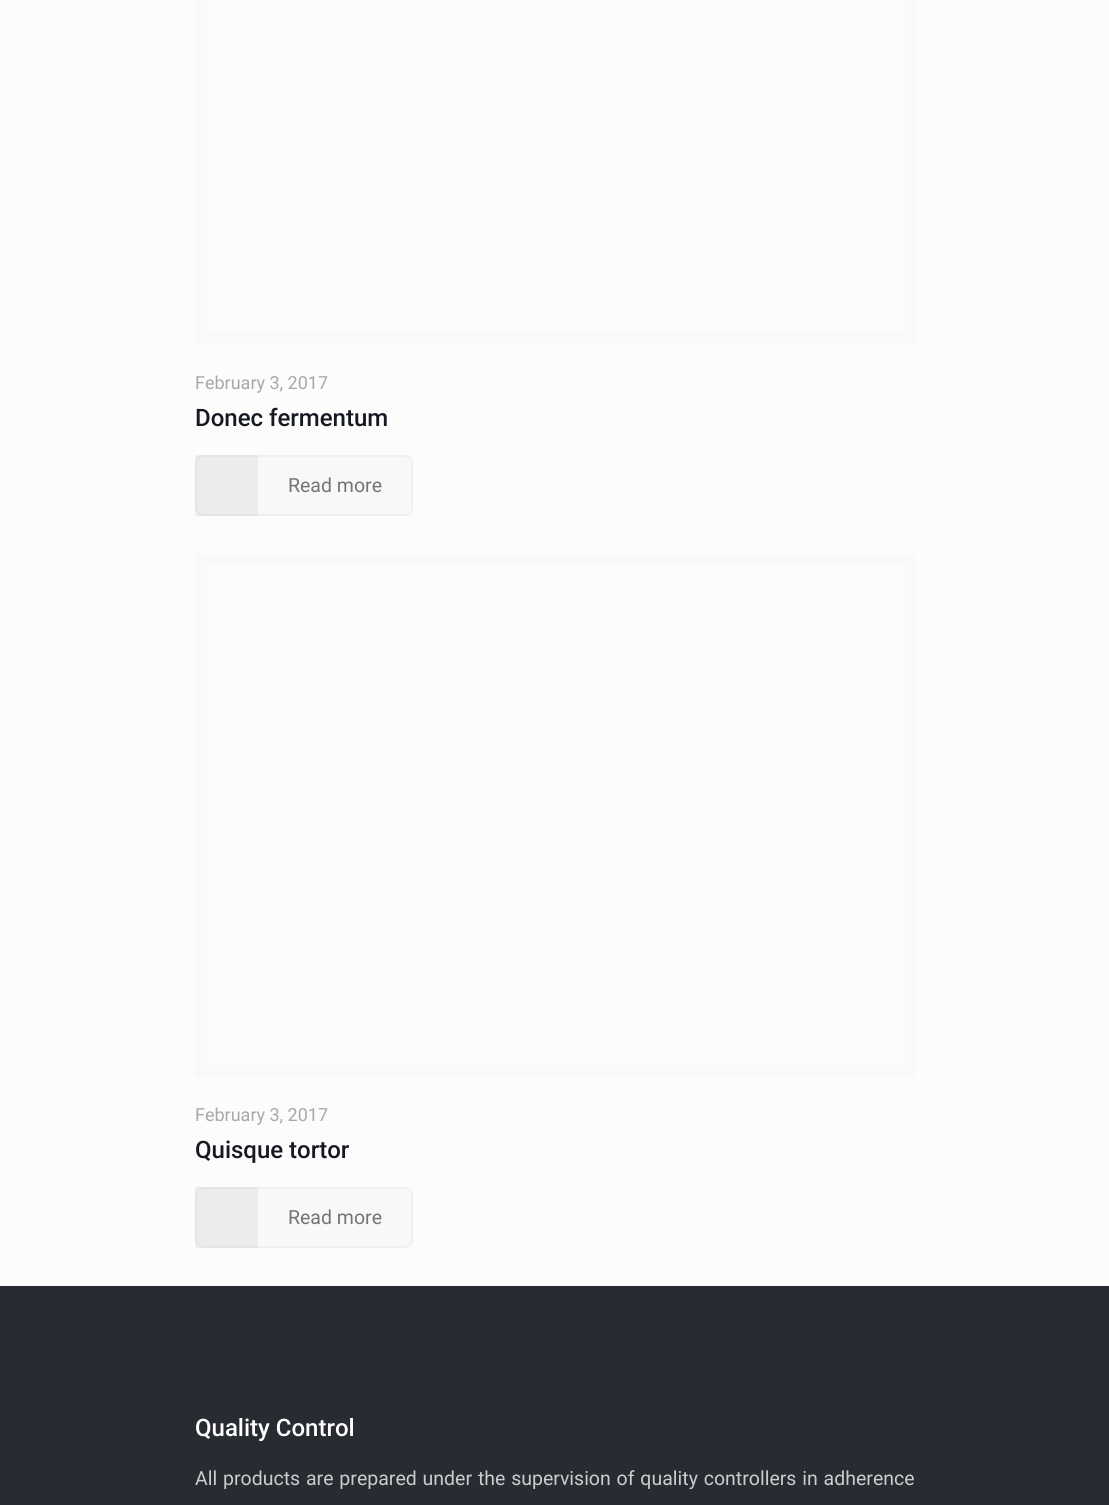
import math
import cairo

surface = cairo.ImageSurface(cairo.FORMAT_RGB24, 1109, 1505)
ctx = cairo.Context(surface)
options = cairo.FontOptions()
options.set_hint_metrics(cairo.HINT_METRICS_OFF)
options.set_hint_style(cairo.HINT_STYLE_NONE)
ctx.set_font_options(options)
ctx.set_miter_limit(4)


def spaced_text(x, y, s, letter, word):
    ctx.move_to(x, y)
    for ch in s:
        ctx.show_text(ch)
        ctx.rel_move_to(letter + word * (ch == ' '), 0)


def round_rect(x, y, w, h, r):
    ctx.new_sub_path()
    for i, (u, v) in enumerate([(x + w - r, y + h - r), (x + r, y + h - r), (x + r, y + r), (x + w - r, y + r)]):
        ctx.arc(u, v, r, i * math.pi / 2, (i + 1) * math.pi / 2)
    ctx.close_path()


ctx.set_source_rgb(0.988, 0.988, 0.988)
ctx.paint()
ctx.rectangle(201, -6, 708, 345)
ctx.set_source_rgb(0.973, 0.973, 0.973)
ctx.set_line_width(12)
ctx.stroke()
ctx.select_font_face("Roboto")
ctx.set_font_size(18)
ctx.set_source_rgb(0.659, 0.659, 0.659)
ctx.move_to(195, 389)
ctx.show_text("February 3, 2017")
ctx.select_font_face("Roboto Medium")
ctx.set_font_size(24)
ctx.set_source_rgb(0.086, 0.098, 0.133)
ctx.move_to(195, 426)
ctx.show_text("Donec fermentum")
ctx.set_source_rgb(0.969, 0.969, 0.969)
round_rect(196, 456, 216, 59, 7)
ctx.fill_preserve()
ctx.set_source_rgb(0.941, 0.941, 0.941)
ctx.set_line_width(2)
ctx.stroke()
ctx.set_source_rgba(0, 0, 0, 0.05)
ctx.rectangle(195, 455, 63, 61)
ctx.fill()
ctx.select_font_face("Roboto")
ctx.set_font_size(19.5)
ctx.set_source_rgb(0.455, 0.455, 0.455)
ctx.move_to(288, 492)
ctx.show_text("Read more")
ctx.rectangle(201, 560, 708, 511)
ctx.set_source_rgb(0.973, 0.973, 0.973)
ctx.set_line_width(12)
ctx.stroke()
ctx.set_font_size(18)
ctx.set_source_rgb(0.659, 0.659, 0.659)
ctx.move_to(195, 1121)
ctx.show_text("February 3, 2017")
ctx.select_font_face("Roboto Medium")
ctx.set_font_size(24)
ctx.set_source_rgb(0.086, 0.098, 0.133)
ctx.move_to(195, 1158)
ctx.show_text("Quisque tortor")
ctx.set_source_rgb(0.969, 0.969, 0.969)
round_rect(196, 1188, 216, 59, 7)
ctx.fill_preserve()
ctx.set_source_rgb(0.941, 0.941, 0.941)
ctx.set_line_width(2)
ctx.stroke()
ctx.set_source_rgba(0, 0, 0, 0.05)
ctx.rectangle(195, 1187, 63, 61)
ctx.fill()
ctx.select_font_face("Roboto")
ctx.set_font_size(19.5)
ctx.set_source_rgb(0.455, 0.455, 0.455)
ctx.move_to(288, 1224)
ctx.show_text("Read more")
ctx.set_source_rgb(0.161, 0.169, 0.2)
ctx.rectangle(0, 1286, 1109, 219)
ctx.fill()
ctx.select_font_face("Roboto Medium")
ctx.set_font_size(24)
ctx.set_source_rgb(1, 1, 1)
ctx.move_to(195, 1436)
ctx.show_text("Quality Control")
ctx.select_font_face("Roboto")
ctx.set_font_size(19.5)
ctx.set_source_rgb(0.8, 0.8, 0.8)
spaced_text(195, 1485, "All products are prepared under the supervision of quality controllers in adherence", 0, 1)
surface.write_to_png("page.png")
